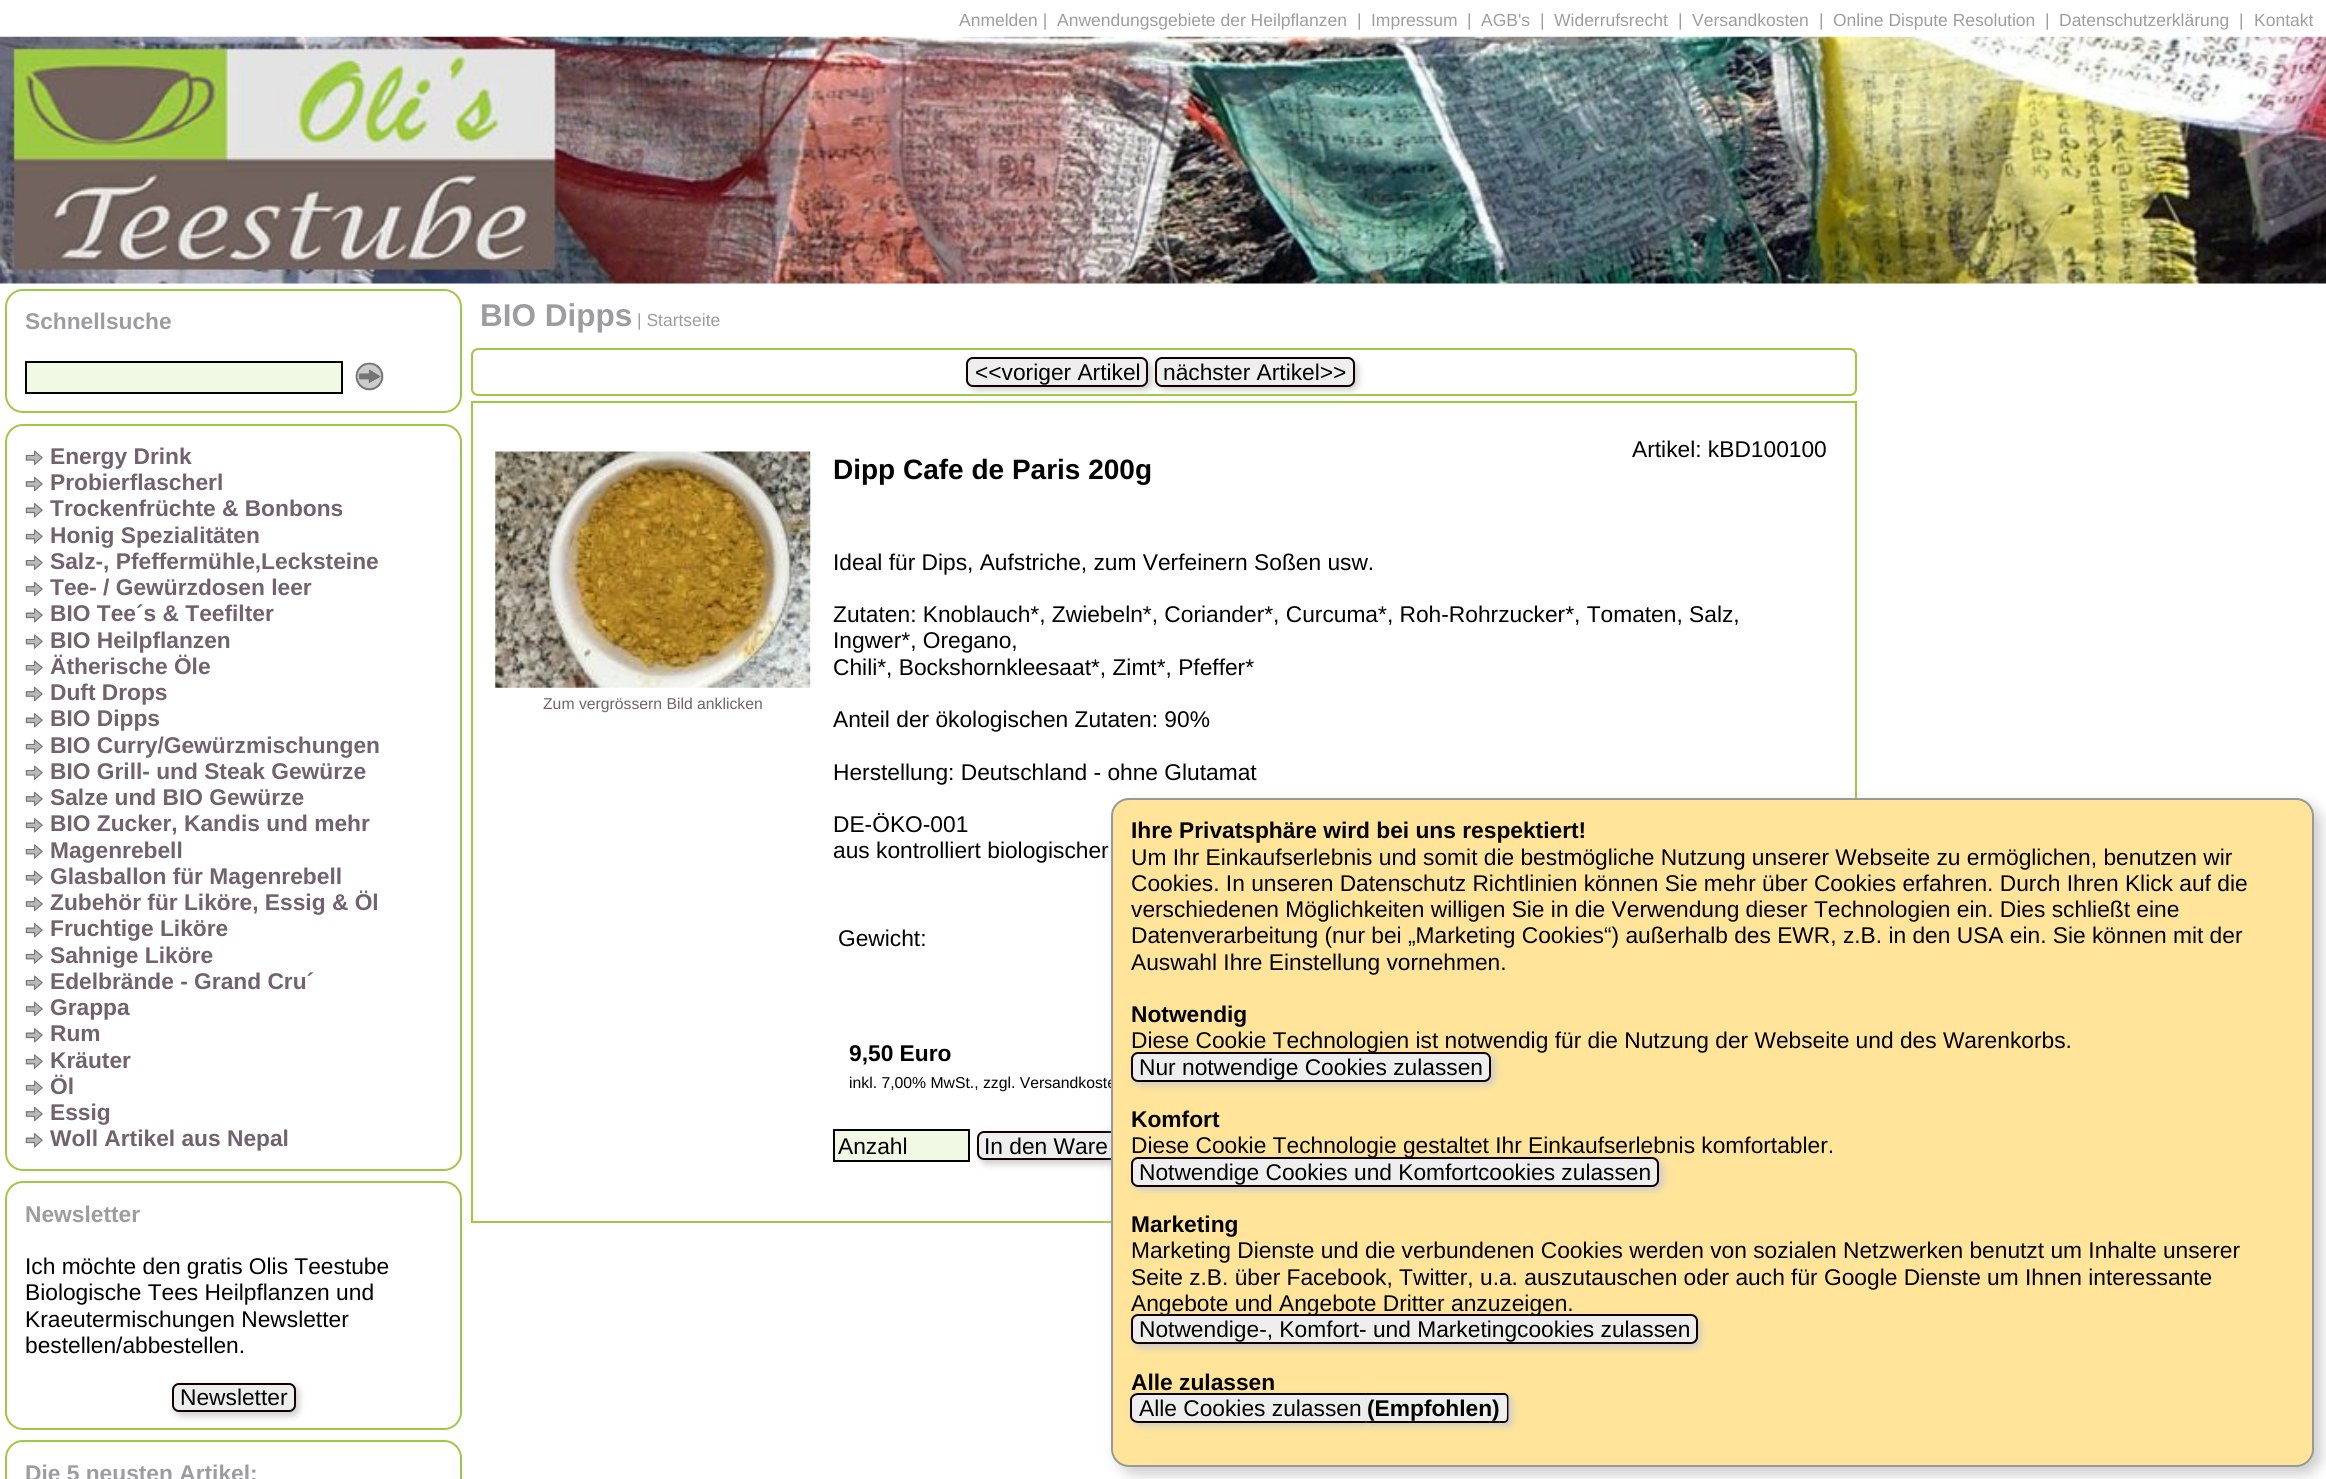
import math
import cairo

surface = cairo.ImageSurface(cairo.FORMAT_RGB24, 2326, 1479)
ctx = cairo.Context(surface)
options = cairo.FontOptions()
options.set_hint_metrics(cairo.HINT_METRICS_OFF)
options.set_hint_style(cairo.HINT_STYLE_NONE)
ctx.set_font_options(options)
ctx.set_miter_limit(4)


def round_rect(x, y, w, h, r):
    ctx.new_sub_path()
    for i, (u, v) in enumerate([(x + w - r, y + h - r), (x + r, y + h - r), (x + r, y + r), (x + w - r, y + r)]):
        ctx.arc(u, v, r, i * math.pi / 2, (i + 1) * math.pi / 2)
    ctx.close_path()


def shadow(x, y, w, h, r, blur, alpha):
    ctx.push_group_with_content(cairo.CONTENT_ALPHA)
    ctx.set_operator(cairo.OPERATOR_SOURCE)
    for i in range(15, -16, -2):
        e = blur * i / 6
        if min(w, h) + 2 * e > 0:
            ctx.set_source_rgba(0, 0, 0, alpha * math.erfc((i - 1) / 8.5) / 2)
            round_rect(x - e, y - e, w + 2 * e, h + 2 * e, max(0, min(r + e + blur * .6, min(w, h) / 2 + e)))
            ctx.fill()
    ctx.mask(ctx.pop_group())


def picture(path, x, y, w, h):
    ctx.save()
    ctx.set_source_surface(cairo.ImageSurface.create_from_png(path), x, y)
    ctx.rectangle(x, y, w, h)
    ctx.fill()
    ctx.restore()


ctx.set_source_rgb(1, 1, 1)
ctx.paint()
ctx.select_font_face("Liberation Sans")
ctx.set_font_size(17.5)
ctx.set_source_rgb(0.616, 0.616, 0.624)
ctx.move_to(959, 26)
ctx.show_text("Anmelden |")
ctx.move_to(1057, 26)
ctx.show_text("Anwendungsgebiete der Heilpflanzen")
ctx.move_to(1357, 26)
ctx.show_text("|")
ctx.move_to(1371, 26)
ctx.show_text("Impressum")
ctx.move_to(1467, 26)
ctx.show_text("|")
ctx.move_to(1481, 26)
ctx.show_text("AGB's")
ctx.move_to(1540, 26)
ctx.show_text("|")
ctx.move_to(1554, 26)
ctx.show_text("Widerrufsrecht")
ctx.move_to(1678, 26)
ctx.show_text("|")
ctx.move_to(1692, 26)
ctx.show_text("Versandkosten")
ctx.move_to(1819, 26)
ctx.show_text("|")
ctx.move_to(1833, 26)
ctx.show_text("Online Dispute Resolution")
ctx.move_to(2045, 26)
ctx.show_text("|")
ctx.move_to(2059, 26)
ctx.show_text("Datenschutzerklärung")
ctx.move_to(2239, 26)
ctx.show_text("|")
ctx.move_to(2254, 26)
ctx.show_text("Kontakt")
picture("img1.png", 0, 36, 2326, 248)
round_rect(6, 290, 455, 122, 17)
ctx.set_source_rgb(0.62, 0.788, 0.263)
ctx.stroke()
ctx.select_font_face("Liberation Sans", cairo.FONT_SLANT_NORMAL, cairo.FONT_WEIGHT_BOLD)
ctx.set_font_size(22.75)
ctx.set_source_rgb(0.616, 0.616, 0.624)
ctx.move_to(25, 329)
ctx.show_text("Schnellsuche")
ctx.set_source_rgb(0.945, 0.969, 0.894)
ctx.rectangle(26, 362, 316, 31)
ctx.fill_preserve()
ctx.set_source_rgb(0, 0, 0)
ctx.stroke()
picture("img2.png", 355, 362, 29, 29)
round_rect(6, 425, 455, 745, 17)
ctx.set_source_rgb(0.62, 0.788, 0.263)
ctx.stroke()
picture("img3.png", 25, 450, 18, 16)
ctx.set_source_rgb(0.443, 0.384, 0.427)
ctx.move_to(50, 464)
ctx.show_text("Energy Drink")
picture("img4.png", 25, 476, 18, 16)
ctx.move_to(50, 490)
ctx.show_text("Probierflascherl")
picture("img5.png", 25, 503, 18, 15)
ctx.move_to(50, 516)
ctx.show_text("Trockenfrüchte & Bonbons")
picture("img6.png", 25, 529, 18, 15)
ctx.move_to(50, 543)
ctx.show_text("Honig Spezialitäten")
picture("img3.png", 25, 555, 18, 16)
ctx.move_to(50, 569)
ctx.show_text("Salz-, Pfeffermühle,Lecksteine")
picture("img4.png", 25, 581, 18, 16)
ctx.move_to(50, 595)
ctx.show_text("Tee- / Gewürzdosen leer")
picture("img5.png", 25, 608, 18, 15)
ctx.move_to(50, 621)
ctx.show_text("BIO Tee´s & Teefilter")
picture("img7.png", 25, 634, 18, 15)
ctx.move_to(50, 648)
ctx.show_text("BIO Heilpflanzen")
picture("img3.png", 25, 660, 18, 16)
ctx.move_to(50, 674)
ctx.show_text("Ätherische Öle")
picture("img4.png", 25, 686, 18, 16)
ctx.move_to(50, 700)
ctx.show_text("Duft Drops")
picture("img5.png", 25, 713, 18, 15)
ctx.move_to(50, 726)
ctx.show_text("BIO Dipps")
picture("img7.png", 25, 739, 18, 15)
ctx.move_to(50, 753)
ctx.show_text("BIO Curry/Gewürzmischungen")
picture("img3.png", 25, 765, 18, 16)
ctx.move_to(50, 779)
ctx.show_text("BIO Grill- und Steak Gewürze")
picture("img8.png", 25, 791, 18, 16)
ctx.move_to(50, 805)
ctx.show_text("Salze und BIO Gewürze")
picture("img5.png", 25, 818, 18, 15)
ctx.move_to(50, 831)
ctx.show_text("BIO Zucker, Kandis und mehr")
picture("img7.png", 25, 844, 18, 15)
ctx.move_to(50, 858)
ctx.show_text("Magenrebell")
picture("img3.png", 25, 870, 18, 16)
ctx.move_to(50, 884)
ctx.show_text("Glasballon für Magenrebell")
picture("img8.png", 25, 896, 18, 16)
ctx.move_to(50, 910)
ctx.show_text("Zubehör für Liköre, Essig & Öl")
picture("img5.png", 25, 923, 18, 15)
ctx.move_to(50, 936)
ctx.show_text("Fruchtige Liköre")
picture("img7.png", 25, 949, 18, 15)
ctx.move_to(50, 963)
ctx.show_text("Sahnige Liköre")
picture("img3.png", 25, 975, 18, 16)
ctx.move_to(50, 989)
ctx.show_text("Edelbrände - Grand Cru´")
picture("img4.png", 25, 1001, 18, 16)
ctx.move_to(50, 1015)
ctx.show_text("Grappa")
picture("img5.png", 25, 1028, 18, 15)
ctx.move_to(50, 1041)
ctx.show_text("Rum")
picture("img9.png", 25, 1054, 18, 15)
ctx.move_to(50, 1068)
ctx.show_text("Kräuter")
picture("img3.png", 25, 1080, 18, 16)
ctx.move_to(50, 1094)
ctx.show_text("Öl")
picture("img4.png", 25, 1106, 18, 16)
ctx.move_to(50, 1120)
ctx.show_text("Essig")
picture("img5.png", 25, 1133, 18, 15)
ctx.move_to(50, 1146)
ctx.show_text("Woll Artikel aus Nepal")
round_rect(6, 1182, 455, 247, 17)
ctx.set_source_rgb(0.62, 0.788, 0.263)
ctx.stroke()
ctx.set_source_rgb(0.616, 0.616, 0.624)
ctx.move_to(25, 1222)
ctx.show_text("Newsletter")
ctx.select_font_face("Liberation Sans")
ctx.set_source_rgb(0, 0, 0)
ctx.move_to(25, 1274)
ctx.show_text("Ich möchte den gratis Olis Teestube")
ctx.move_to(25, 1300)
ctx.show_text("Biologische Tees Heilpflanzen und")
ctx.move_to(25, 1327)
ctx.show_text("Kraeutermischungen Newsletter")
ctx.move_to(25, 1353)
ctx.show_text("bestellen/abbestellen.")
ctx.set_source_rgb(0.8, 0.8, 0.8)
shadow(175, 1386, 124, 30, 7, 3.5, 1)
ctx.set_source_rgb(0.933, 0.933, 0.933)
round_rect(173, 1384, 122, 27, 6)
ctx.fill_preserve()
ctx.set_source_rgb(0.067, 0, 0)
ctx.stroke()
ctx.set_source_rgb(0, 0, 0)
ctx.move_to(180, 1405)
ctx.show_text("Newsletter")
round_rect(6, 1441, 455, 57, 17)
ctx.set_source_rgb(0.62, 0.788, 0.263)
ctx.stroke()
ctx.select_font_face("Liberation Sans", cairo.FONT_SLANT_NORMAL, cairo.FONT_WEIGHT_BOLD)
ctx.set_source_rgb(0.616, 0.616, 0.624)
ctx.move_to(25, 1481)
ctx.show_text("Die 5 neusten Artikel:")
ctx.set_font_size(31.5)
ctx.move_to(480, 326)
ctx.show_text("BIO Dipps")
ctx.select_font_face("Liberation Sans")
ctx.set_font_size(17.5)
ctx.move_to(637, 326)
ctx.show_text("| Startseite")
round_rect(472, 349, 1384, 46, 6)
ctx.set_source_rgb(0.62, 0.788, 0.263)
ctx.stroke()
ctx.rectangle(472, 402, 1384, 820)
ctx.stroke()
ctx.set_source_rgb(0.8, 0.8, 0.8)
shadow(970, 361, 182, 29, 7, 3.5, 1)
ctx.set_source_rgb(0.933, 0.933, 0.933)
round_rect(967, 358, 180, 28, 6)
ctx.fill_preserve()
ctx.set_source_rgb(0.067, 0, 0)
ctx.stroke()
ctx.set_font_size(22.75)
ctx.set_source_rgb(0, 0, 0)
ctx.move_to(975, 380)
ctx.show_text("<<voriger Artikel")
ctx.set_source_rgb(0.8, 0.8, 0.8)
shadow(1159, 361, 199, 29, 7, 3.5, 1)
ctx.set_source_rgb(0.933, 0.933, 0.933)
round_rect(1156, 358, 198, 28, 6)
ctx.fill_preserve()
ctx.set_source_rgb(0.067, 0, 0)
ctx.stroke()
ctx.set_source_rgb(0, 0, 0)
ctx.move_to(1163, 380)
ctx.show_text("nächster Artikel>>")
picture("img10.png", 495, 451, 316, 237)
ctx.set_font_size(15.75)
ctx.set_source_rgb(0.443, 0.384, 0.427)
ctx.move_to(543, 709)
ctx.show_text("Zum vergrössern Bild anklicken")
ctx.set_font_size(22.75)
ctx.set_source_rgb(0, 0, 0)
ctx.move_to(1632, 457)
ctx.show_text("Artikel: kBD100100")
ctx.select_font_face("Liberation Sans", cairo.FONT_SLANT_NORMAL, cairo.FONT_WEIGHT_BOLD)
ctx.set_font_size(28)
ctx.move_to(833, 479)
ctx.show_text("Dipp Cafe de Paris 200g")
ctx.select_font_face("Liberation Sans")
ctx.set_font_size(22.75)
ctx.move_to(833, 570)
ctx.show_text("Ideal für Dips, Aufstriche, zum Verfeinern Soßen usw.")
ctx.move_to(833, 622)
ctx.show_text("Zutaten: Knoblauch*, Zwiebeln*, Coriander*, Curcuma*, Roh-Rohrzucker*, Tomaten, Salz,")
ctx.move_to(833, 648)
ctx.show_text("Ingwer*, Oregano,")
ctx.move_to(833, 675)
ctx.show_text("Chili*, Bockshornkleesaat*, Zimt*, Pfeffer*")
ctx.move_to(833, 727)
ctx.show_text("Anteil der ökologischen Zutaten: 90%")
ctx.move_to(833, 780)
ctx.show_text("Herstellung: Deutschland - ohne Glutamat")
ctx.move_to(833, 832)
ctx.show_text("DE-ÖKO-001")
ctx.move_to(833, 858)
ctx.show_text("aus kontrolliert biologischer")
ctx.move_to(838, 946)
ctx.show_text("Gewicht:")
ctx.select_font_face("Liberation Sans", cairo.FONT_SLANT_NORMAL, cairo.FONT_WEIGHT_BOLD)
ctx.move_to(849, 1061)
ctx.show_text("9,50 Euro")
ctx.select_font_face("Liberation Sans")
ctx.set_font_size(15.75)
ctx.move_to(849, 1088)
ctx.show_text("inkl. 7,00% MwSt., zzgl. Versandkoste")
ctx.set_source_rgb(0.945, 0.969, 0.894)
ctx.rectangle(834, 1130, 135, 31)
ctx.fill_preserve()
ctx.set_source_rgb(0, 0, 0)
ctx.stroke()
ctx.set_font_size(22.75)
ctx.move_to(838, 1154)
ctx.show_text("Anzahl")
ctx.set_source_rgb(0.8, 0.8, 0.8)
shadow(980, 1134, 259, 30, 7, 3.5, 1)
ctx.set_source_rgb(0.933, 0.933, 0.933)
round_rect(978, 1132, 257, 27, 6)
ctx.fill_preserve()
ctx.set_source_rgb(0.067, 0, 0)
ctx.stroke()
ctx.set_source_rgb(0, 0, 0)
ctx.move_to(984, 1154)
ctx.show_text("In den Ware")
ctx.set_source_rgb(0.8, 0.8, 0.8)
shadow(1118, 805, 1203, 669, 18, 7, 1)
ctx.set_source_rgb(1, 0.894, 0.6)
round_rect(1112, 799, 1201, 667, 17)
ctx.fill_preserve()
ctx.set_source_rgb(0.6, 0.6, 0.6)
ctx.stroke()
ctx.select_font_face("Liberation Sans", cairo.FONT_SLANT_NORMAL, cairo.FONT_WEIGHT_BOLD)
ctx.set_source_rgb(0, 0, 0)
ctx.move_to(1131, 838)
ctx.show_text("Ihre Privatsphäre wird bei uns respektiert!")
ctx.select_font_face("Liberation Sans")
ctx.move_to(1131, 865)
ctx.show_text("Um Ihr Einkaufserlebnis und somit die bestmögliche Nutzung unserer Webseite zu ermöglichen, benutzen wir")
ctx.move_to(1131, 891)
ctx.show_text("Cookies. In unseren Datenschutz Richtlinien können Sie mehr über Cookies erfahren. Durch Ihren Klick auf die")
ctx.move_to(1131, 917)
ctx.show_text("verschiedenen Möglichkeiten willigen Sie in die Verwendung dieser Technologien ein. Dies schließt eine")
ctx.move_to(1131, 943)
ctx.show_text("Datenverarbeitung (nur bei „Marketing Cookies“) außerhalb des EWR, z.B. in den USA ein. Sie können mit der")
ctx.move_to(1131, 970)
ctx.show_text("Auswahl Ihre Einstellung vornehmen.")
ctx.select_font_face("Liberation Sans", cairo.FONT_SLANT_NORMAL, cairo.FONT_WEIGHT_BOLD)
ctx.move_to(1131, 1022)
ctx.show_text("Notwendig")
ctx.select_font_face("Liberation Sans")
ctx.move_to(1131, 1048)
ctx.show_text("Diese Cookie Technologien ist notwendig für die Nutzung der Webseite und des Warenkorbs.")
ctx.set_source_rgb(0.8, 0.8, 0.8)
shadow(1134, 1055, 361, 30, 7, 3.5, 1)
ctx.set_source_rgb(0.933, 0.933, 0.933)
round_rect(1132, 1053, 358, 28, 6)
ctx.fill_preserve()
ctx.set_source_rgb(0.067, 0, 0)
ctx.stroke()
ctx.set_source_rgb(0, 0, 0)
ctx.move_to(1139, 1075)
ctx.show_text("Nur notwendige Cookies zulassen")
ctx.select_font_face("Liberation Sans", cairo.FONT_SLANT_NORMAL, cairo.FONT_WEIGHT_BOLD)
ctx.move_to(1131, 1127)
ctx.show_text("Komfort")
ctx.select_font_face("Liberation Sans")
ctx.move_to(1131, 1153)
ctx.show_text("Diese Cookie Technologie gestaltet Ihr Einkaufserlebnis komfortabler.")
ctx.set_source_rgb(0.8, 0.8, 0.8)
shadow(1134, 1160, 529, 30, 7, 3.5, 1)
ctx.set_source_rgb(0.933, 0.933, 0.933)
round_rect(1132, 1158, 526, 28, 6)
ctx.fill_preserve()
ctx.set_source_rgb(0.067, 0, 0)
ctx.stroke()
ctx.set_source_rgb(0, 0, 0)
ctx.move_to(1139, 1180)
ctx.show_text("Notwendige Cookies und Komfortcookies zulassen")
ctx.select_font_face("Liberation Sans", cairo.FONT_SLANT_NORMAL, cairo.FONT_WEIGHT_BOLD)
ctx.move_to(1131, 1232)
ctx.show_text("Marketing")
ctx.select_font_face("Liberation Sans")
ctx.move_to(1131, 1258)
ctx.show_text("Marketing Dienste und die verbundenen Cookies werden von sozialen Netzwerken benutzt um Inhalte unserer")
ctx.move_to(1131, 1285)
ctx.show_text("Seite z.B. über Facebook, Twitter, u.a. auszutauschen oder auch für Google Dienste um Ihnen interessante")
ctx.move_to(1131, 1311)
ctx.show_text("Angebote und Angebote Dritter anzuzeigen.")
ctx.set_source_rgb(0.8, 0.8, 0.8)
shadow(1134, 1318, 567, 30, 7, 3.5, 1)
ctx.set_source_rgb(0.933, 0.933, 0.933)
round_rect(1132, 1315, 565, 28, 6)
ctx.fill_preserve()
ctx.set_source_rgb(0.067, 0, 0)
ctx.stroke()
ctx.set_source_rgb(0, 0, 0)
ctx.move_to(1139, 1337)
ctx.show_text("Notwendige-, Komfort- und Marketingcookies zulassen")
ctx.select_font_face("Liberation Sans", cairo.FONT_SLANT_NORMAL, cairo.FONT_WEIGHT_BOLD)
ctx.move_to(1131, 1390)
ctx.show_text("Alle zulassen")
ctx.set_source_rgb(0.8, 0.8, 0.8)
shadow(1134, 1397, 236, 29, 7, 3.5, 1)
ctx.set_source_rgb(0.933, 0.933, 0.933)
ctx.new_path()
ctx.move_to(1138, 1393)
ctx.line_to(1367, 1393)
ctx.line_to(1367, 1423)
ctx.line_to(1138, 1423)
ctx.curve_to(1134, 1423, 1131, 1420, 1131, 1416)
ctx.line_to(1131, 1400)
ctx.curve_to(1131, 1396, 1134, 1393, 1138, 1393)
ctx.close_path()
ctx.fill()
ctx.set_source_rgb(0.067, 0, 0)
ctx.set_fill_rule(cairo.FILL_RULE_EVEN_ODD)
ctx.new_path()
ctx.move_to(1138, 1393)
ctx.line_to(1367, 1393)
ctx.line_to(1367, 1423)
ctx.line_to(1138, 1423)
ctx.curve_to(1134, 1423, 1130, 1420, 1130, 1416)
ctx.line_to(1130, 1400)
ctx.curve_to(1130, 1396, 1134, 1393, 1138, 1393)
ctx.close_path()
ctx.move_to(1138, 1395)
ctx.line_to(1367, 1395)
ctx.line_to(1367, 1421)
ctx.line_to(1138, 1421)
ctx.curve_to(1135, 1421, 1132, 1419, 1132, 1416)
ctx.line_to(1132, 1400)
ctx.curve_to(1132, 1397, 1135, 1395, 1138, 1395)
ctx.close_path()
ctx.fill()
ctx.set_source_rgb(0.8, 0.8, 0.8)
shadow(1370, 1397, 133, 29, 0, 3.5, 1)
ctx.select_font_face("Liberation Sans")
ctx.set_source_rgb(0, 0, 0)
ctx.move_to(1139, 1416)
ctx.show_text("Alle Cookies zulassen")
ctx.set_source_rgb(0.933, 0.933, 0.933)
ctx.rectangle(1367, 1395, 133, 26)
ctx.fill()
ctx.set_source_rgb(0.067, 0, 0)
ctx.rectangle(1367, 1393, 133, 2)
ctx.fill()
ctx.rectangle(1367, 1421, 133, 2)
ctx.fill()
ctx.set_source_rgb(0.8, 0.8, 0.8)
shadow(1503, 1397, 9, 29, 4.5, 3.5, 1)
ctx.select_font_face("Liberation Sans", cairo.FONT_SLANT_NORMAL, cairo.FONT_WEIGHT_BOLD)
ctx.set_source_rgb(0, 0, 0)
ctx.move_to(1367, 1416)
ctx.show_text("(Empfohlen)")
ctx.set_source_rgb(0.933, 0.933, 0.933)
ctx.new_path()
ctx.move_to(1500, 1393)
ctx.line_to(1504.5, 1393)
ctx.curve_to(1507, 1393, 1509, 1395, 1509, 1397.5)
ctx.line_to(1509, 1418.5)
ctx.curve_to(1509, 1421, 1507, 1423, 1504.5, 1423)
ctx.line_to(1500, 1423)
ctx.close_path()
ctx.fill()
ctx.set_source_rgb(0.067, 0, 0)
ctx.new_path()
ctx.move_to(1500, 1393)
ctx.line_to(1504, 1393)
ctx.curve_to(1506.5, 1393, 1508.5, 1395, 1508.5, 1397.5)
ctx.line_to(1508.5, 1418.5)
ctx.curve_to(1508.5, 1421, 1506.5, 1423, 1504, 1423)
ctx.line_to(1500, 1423)
ctx.close_path()
ctx.move_to(1500, 1395)
ctx.curve_to(1506, 1395, 1507, 1394, 1507, 1401)
ctx.line_to(1507, 1415)
ctx.curve_to(1507, 1422, 1506, 1421, 1500, 1421)
ctx.close_path()
ctx.fill()
surface.write_to_png("page.png")
